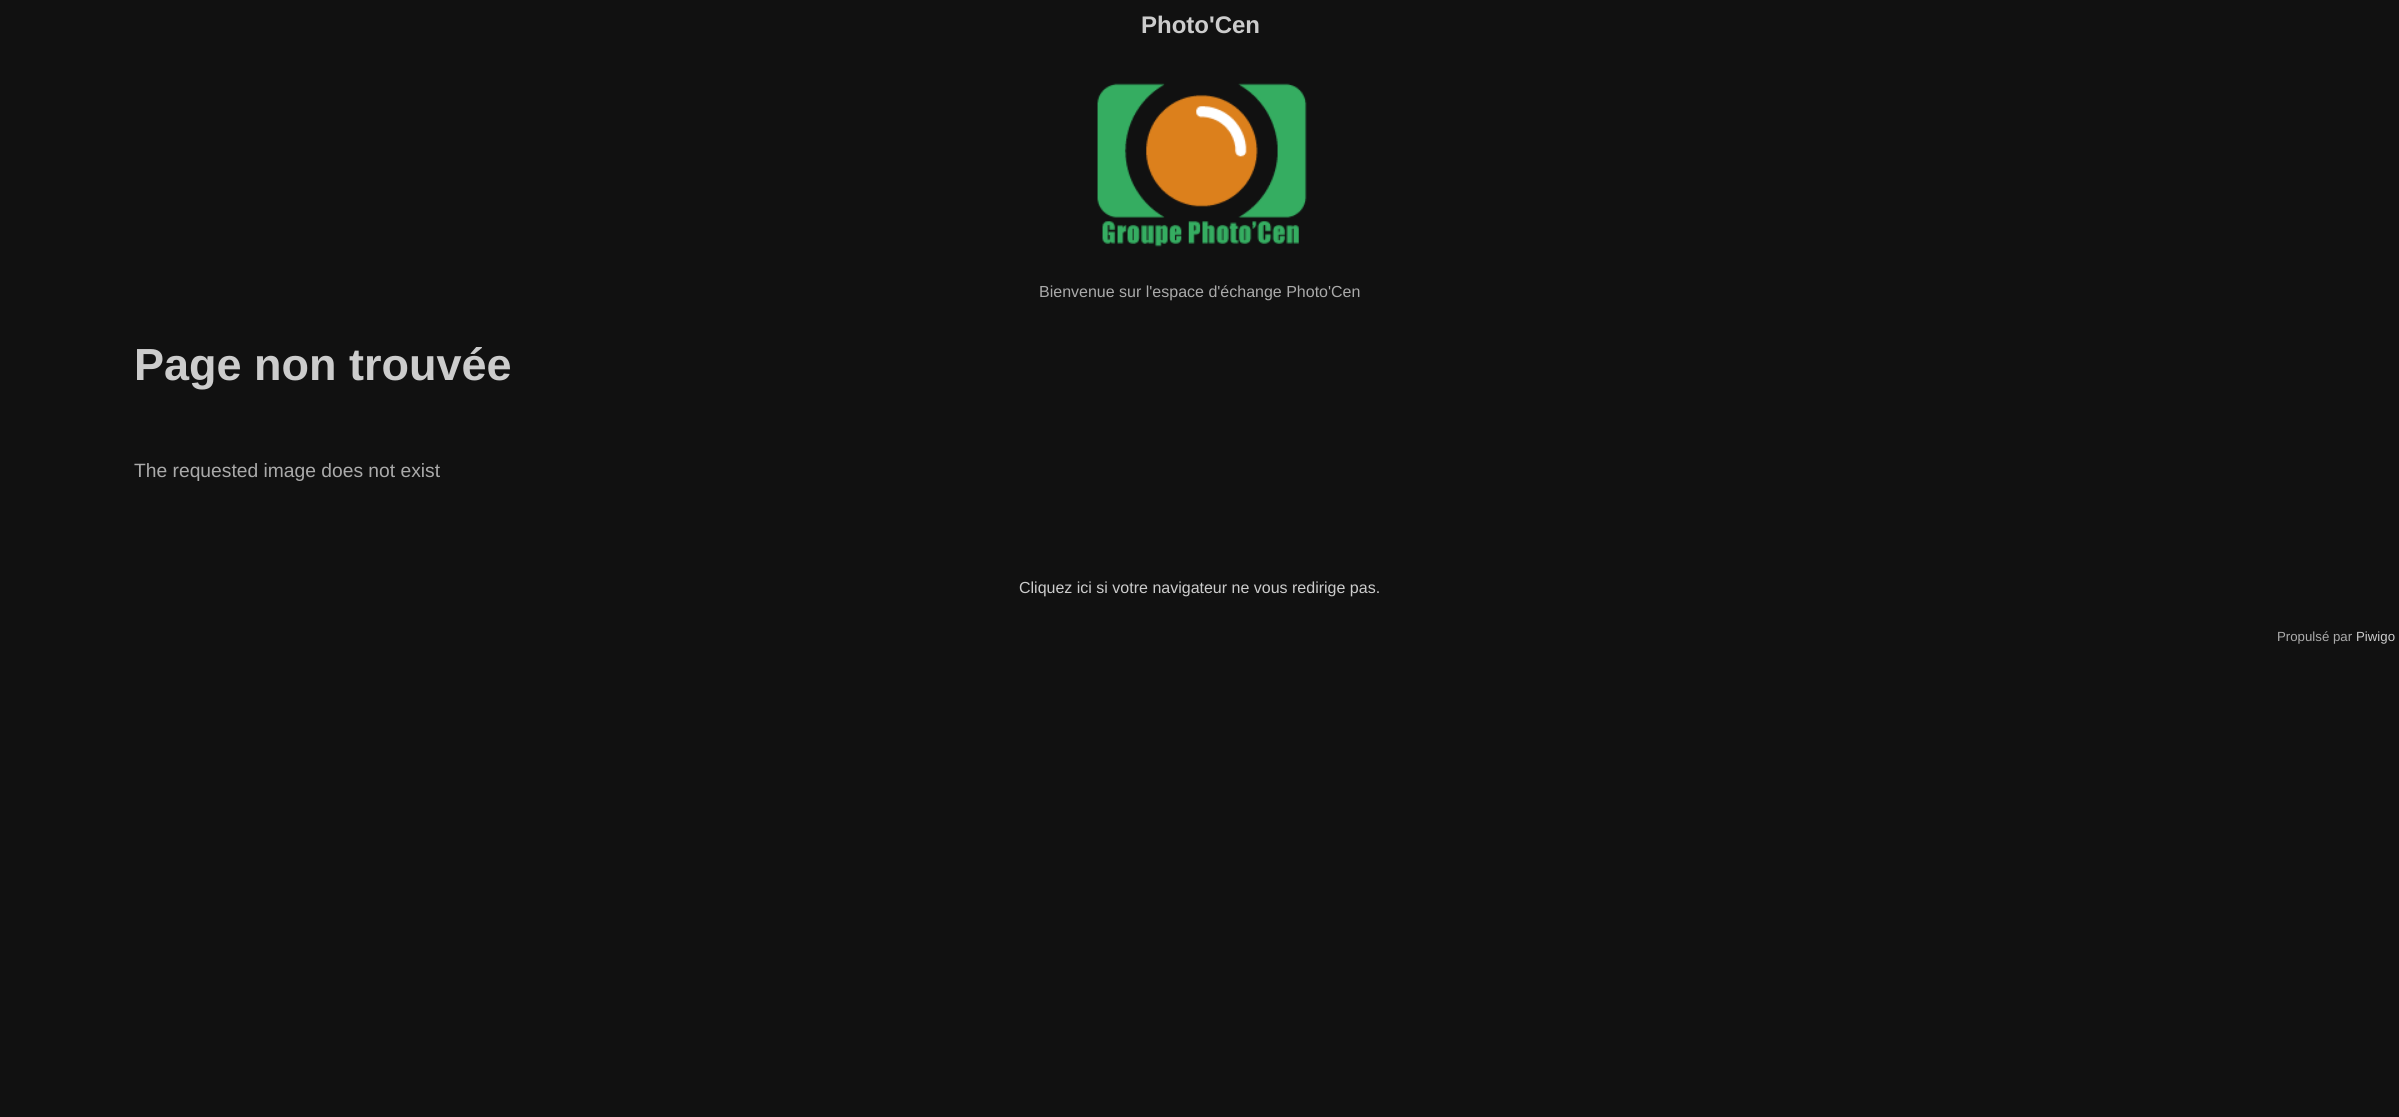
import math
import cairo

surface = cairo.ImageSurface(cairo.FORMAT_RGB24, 2399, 1117)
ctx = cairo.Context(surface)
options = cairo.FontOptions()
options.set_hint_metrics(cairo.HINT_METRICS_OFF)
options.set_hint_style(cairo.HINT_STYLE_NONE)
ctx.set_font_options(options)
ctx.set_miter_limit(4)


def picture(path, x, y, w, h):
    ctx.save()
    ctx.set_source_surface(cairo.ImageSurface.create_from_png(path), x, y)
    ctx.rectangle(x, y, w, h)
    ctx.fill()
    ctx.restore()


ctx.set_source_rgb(0.067, 0.067, 0.067)
ctx.paint()
ctx.select_font_face("Liberation Sans", cairo.FONT_SLANT_NORMAL, cairo.FONT_WEIGHT_BOLD)
ctx.set_font_size(24)
ctx.set_source_rgb(0.8, 0.8, 0.8)
ctx.move_to(1141, 33)
ctx.show_text("Photo'Cen")
picture("img1.png", 1097, 83, 210, 164)
ctx.select_font_face("Liberation Sans")
ctx.set_font_size(16)
ctx.set_source_rgb(0.667, 0.667, 0.667)
ctx.move_to(1039, 297)
ctx.show_text("Bienvenue sur l'espace d'échange Photo'Cen")
ctx.select_font_face("Liberation Sans", cairo.FONT_SLANT_NORMAL, cairo.FONT_WEIGHT_BOLD)
ctx.set_font_size(45)
ctx.set_source_rgb(0.8, 0.8, 0.8)
ctx.move_to(134, 380)
ctx.show_text("Page non trouvée")
ctx.select_font_face("Liberation Sans")
ctx.set_font_size(19.25)
ctx.set_source_rgb(0.667, 0.667, 0.667)
ctx.move_to(134, 477)
ctx.show_text("The requested image does not exist")
ctx.set_font_size(16)
ctx.set_source_rgb(0.8, 0.8, 0.8)
ctx.move_to(1019, 593)
ctx.show_text("Cliquez ici si votre navigateur ne vous redirige pas.")
ctx.set_font_size(13.25)
ctx.set_source_rgb(0.667, 0.667, 0.667)
ctx.move_to(2277, 641)
ctx.show_text("Propulsé par")
ctx.set_source_rgb(0.8, 0.8, 0.8)
ctx.move_to(2356, 641)
ctx.show_text("Piwigo")
surface.write_to_png("page.png")
